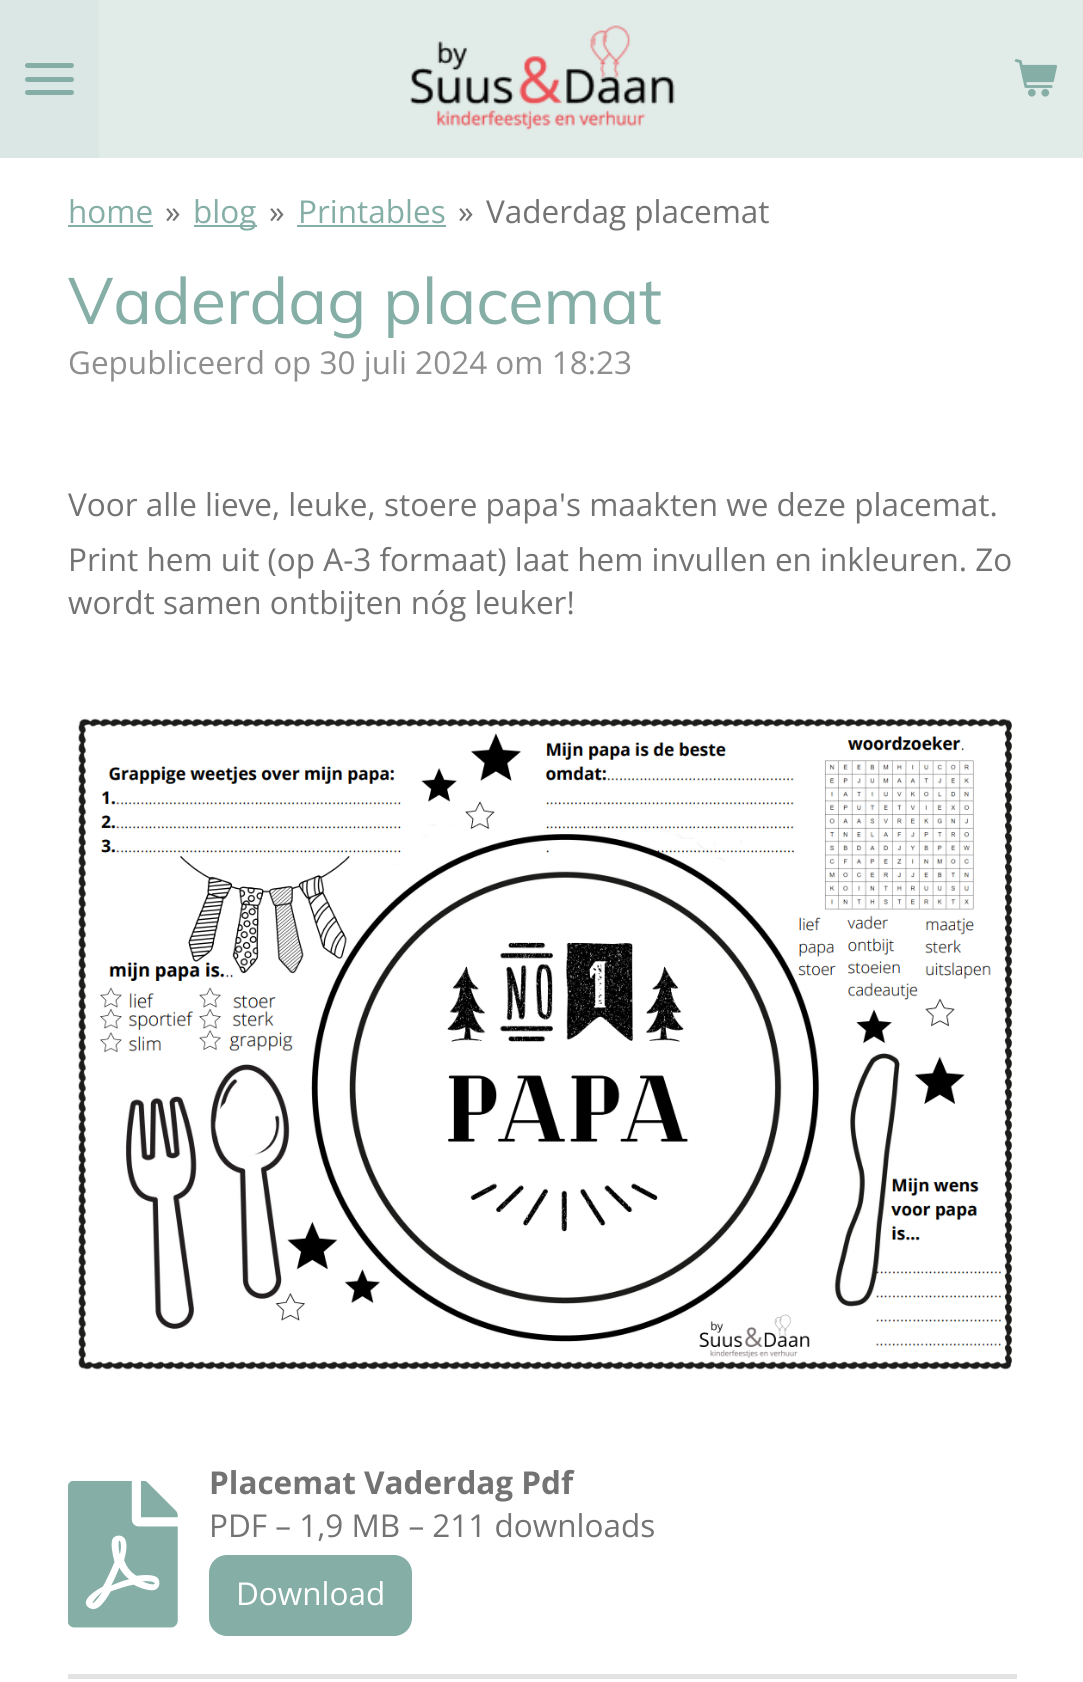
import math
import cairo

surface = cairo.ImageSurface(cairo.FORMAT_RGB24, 1083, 1682)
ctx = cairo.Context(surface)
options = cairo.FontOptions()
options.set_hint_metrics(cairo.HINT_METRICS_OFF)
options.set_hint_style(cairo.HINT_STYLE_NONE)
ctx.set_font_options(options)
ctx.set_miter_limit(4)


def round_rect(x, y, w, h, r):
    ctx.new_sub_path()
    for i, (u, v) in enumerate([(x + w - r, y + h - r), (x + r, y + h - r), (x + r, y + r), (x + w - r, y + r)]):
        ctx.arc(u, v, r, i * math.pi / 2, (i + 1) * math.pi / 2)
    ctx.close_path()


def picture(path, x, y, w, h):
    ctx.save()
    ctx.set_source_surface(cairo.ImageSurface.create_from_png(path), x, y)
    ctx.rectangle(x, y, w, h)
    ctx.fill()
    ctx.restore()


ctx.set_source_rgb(1, 1, 1)
ctx.paint()
ctx.set_source_rgb(0.859, 0.906, 0.898)
ctx.rectangle(0, 0, 99, 158)
ctx.fill()
ctx.set_source_rgb(0.522, 0.682, 0.651)
round_rect(25, 77, 49, 5, 2.5)
ctx.fill()
round_rect(25, 63, 49, 5, 2.5)
ctx.fill()
round_rect(25, 90, 49, 5, 2.5)
ctx.fill()
ctx.set_source_rgb(0.882, 0.922, 0.914)
ctx.rectangle(99, 0, 984, 158)
ctx.fill()
picture("img1.png", 1014, 59, 43, 38)
picture("img2.png", 410, 25, 265, 106)
ctx.select_font_face("Open Sans")
ctx.set_font_size(31.5)
ctx.set_source_rgb(0.522, 0.682, 0.651)
ctx.move_to(68, 223)
ctx.show_text("home")
ctx.rectangle(68, 225, 85, 2)
ctx.fill()
ctx.set_source_rgb(0.451, 0.451, 0.451)
ctx.move_to(165, 223)
ctx.show_text("»")
ctx.set_source_rgb(0.522, 0.682, 0.651)
ctx.rectangle(194, 225, 63, 2)
ctx.fill()
ctx.move_to(193, 223)
ctx.show_text("blog")
ctx.set_source_rgb(0.451, 0.451, 0.451)
ctx.move_to(269, 223)
ctx.show_text("»")
ctx.set_source_rgb(0.522, 0.682, 0.651)
ctx.move_to(298, 223)
ctx.show_text("Printables")
ctx.rectangle(297, 225, 149, 2)
ctx.fill()
ctx.set_source_rgb(0.451, 0.451, 0.451)
ctx.move_to(458, 223)
ctx.show_text("»")
ctx.move_to(486, 223)
ctx.show_text("Vaderdag placemat")
ctx.select_font_face("Muli")
ctx.set_font_size(64.75)
ctx.set_source_rgb(0.522, 0.682, 0.651)
ctx.move_to(68, 324)
ctx.show_text("Vaderdag placemat")
ctx.select_font_face("Open Sans")
ctx.set_font_size(31.5)
ctx.set_source_rgb(0.561, 0.561, 0.561)
ctx.move_to(68, 374)
ctx.show_text("Gepubliceerd op 30 juli 2024 om 18:23")
ctx.set_source_rgb(0.451, 0.451, 0.451)
ctx.move_to(68, 516)
ctx.show_text("Voor alle lieve, leuke, stoere papa's maakten we deze placemat.")
ctx.move_to(68, 571)
ctx.show_text("Print hem uit (op A-3 formaat) laat hem invullen en inkleuren. Zo")
ctx.move_to(68, 614)
ctx.show_text("wordt samen ontbijten nóg leuker!")
picture("img3.png", 78, 718, 934, 652)
picture("img4.png", 68, 1481, 110, 147)
ctx.select_font_face("Open Sans", cairo.FONT_SLANT_NORMAL, cairo.FONT_WEIGHT_BOLD)
ctx.move_to(209, 1494)
ctx.show_text("Placemat Vaderdag Pdf")
ctx.select_font_face("Open Sans")
ctx.move_to(209, 1537)
ctx.show_text("PDF – 1,9 MB – 211 downloads")
ctx.set_source_rgb(0.522, 0.682, 0.651)
round_rect(209, 1555, 203, 81, 18)
ctx.fill()
ctx.set_source_rgb(1, 1, 1)
ctx.move_to(236, 1605)
ctx.show_text("Download")
ctx.set_source_rgb(0.89, 0.89, 0.89)
ctx.rectangle(68, 1674, 949, 5)
ctx.fill()
surface.write_to_png("page.png")
